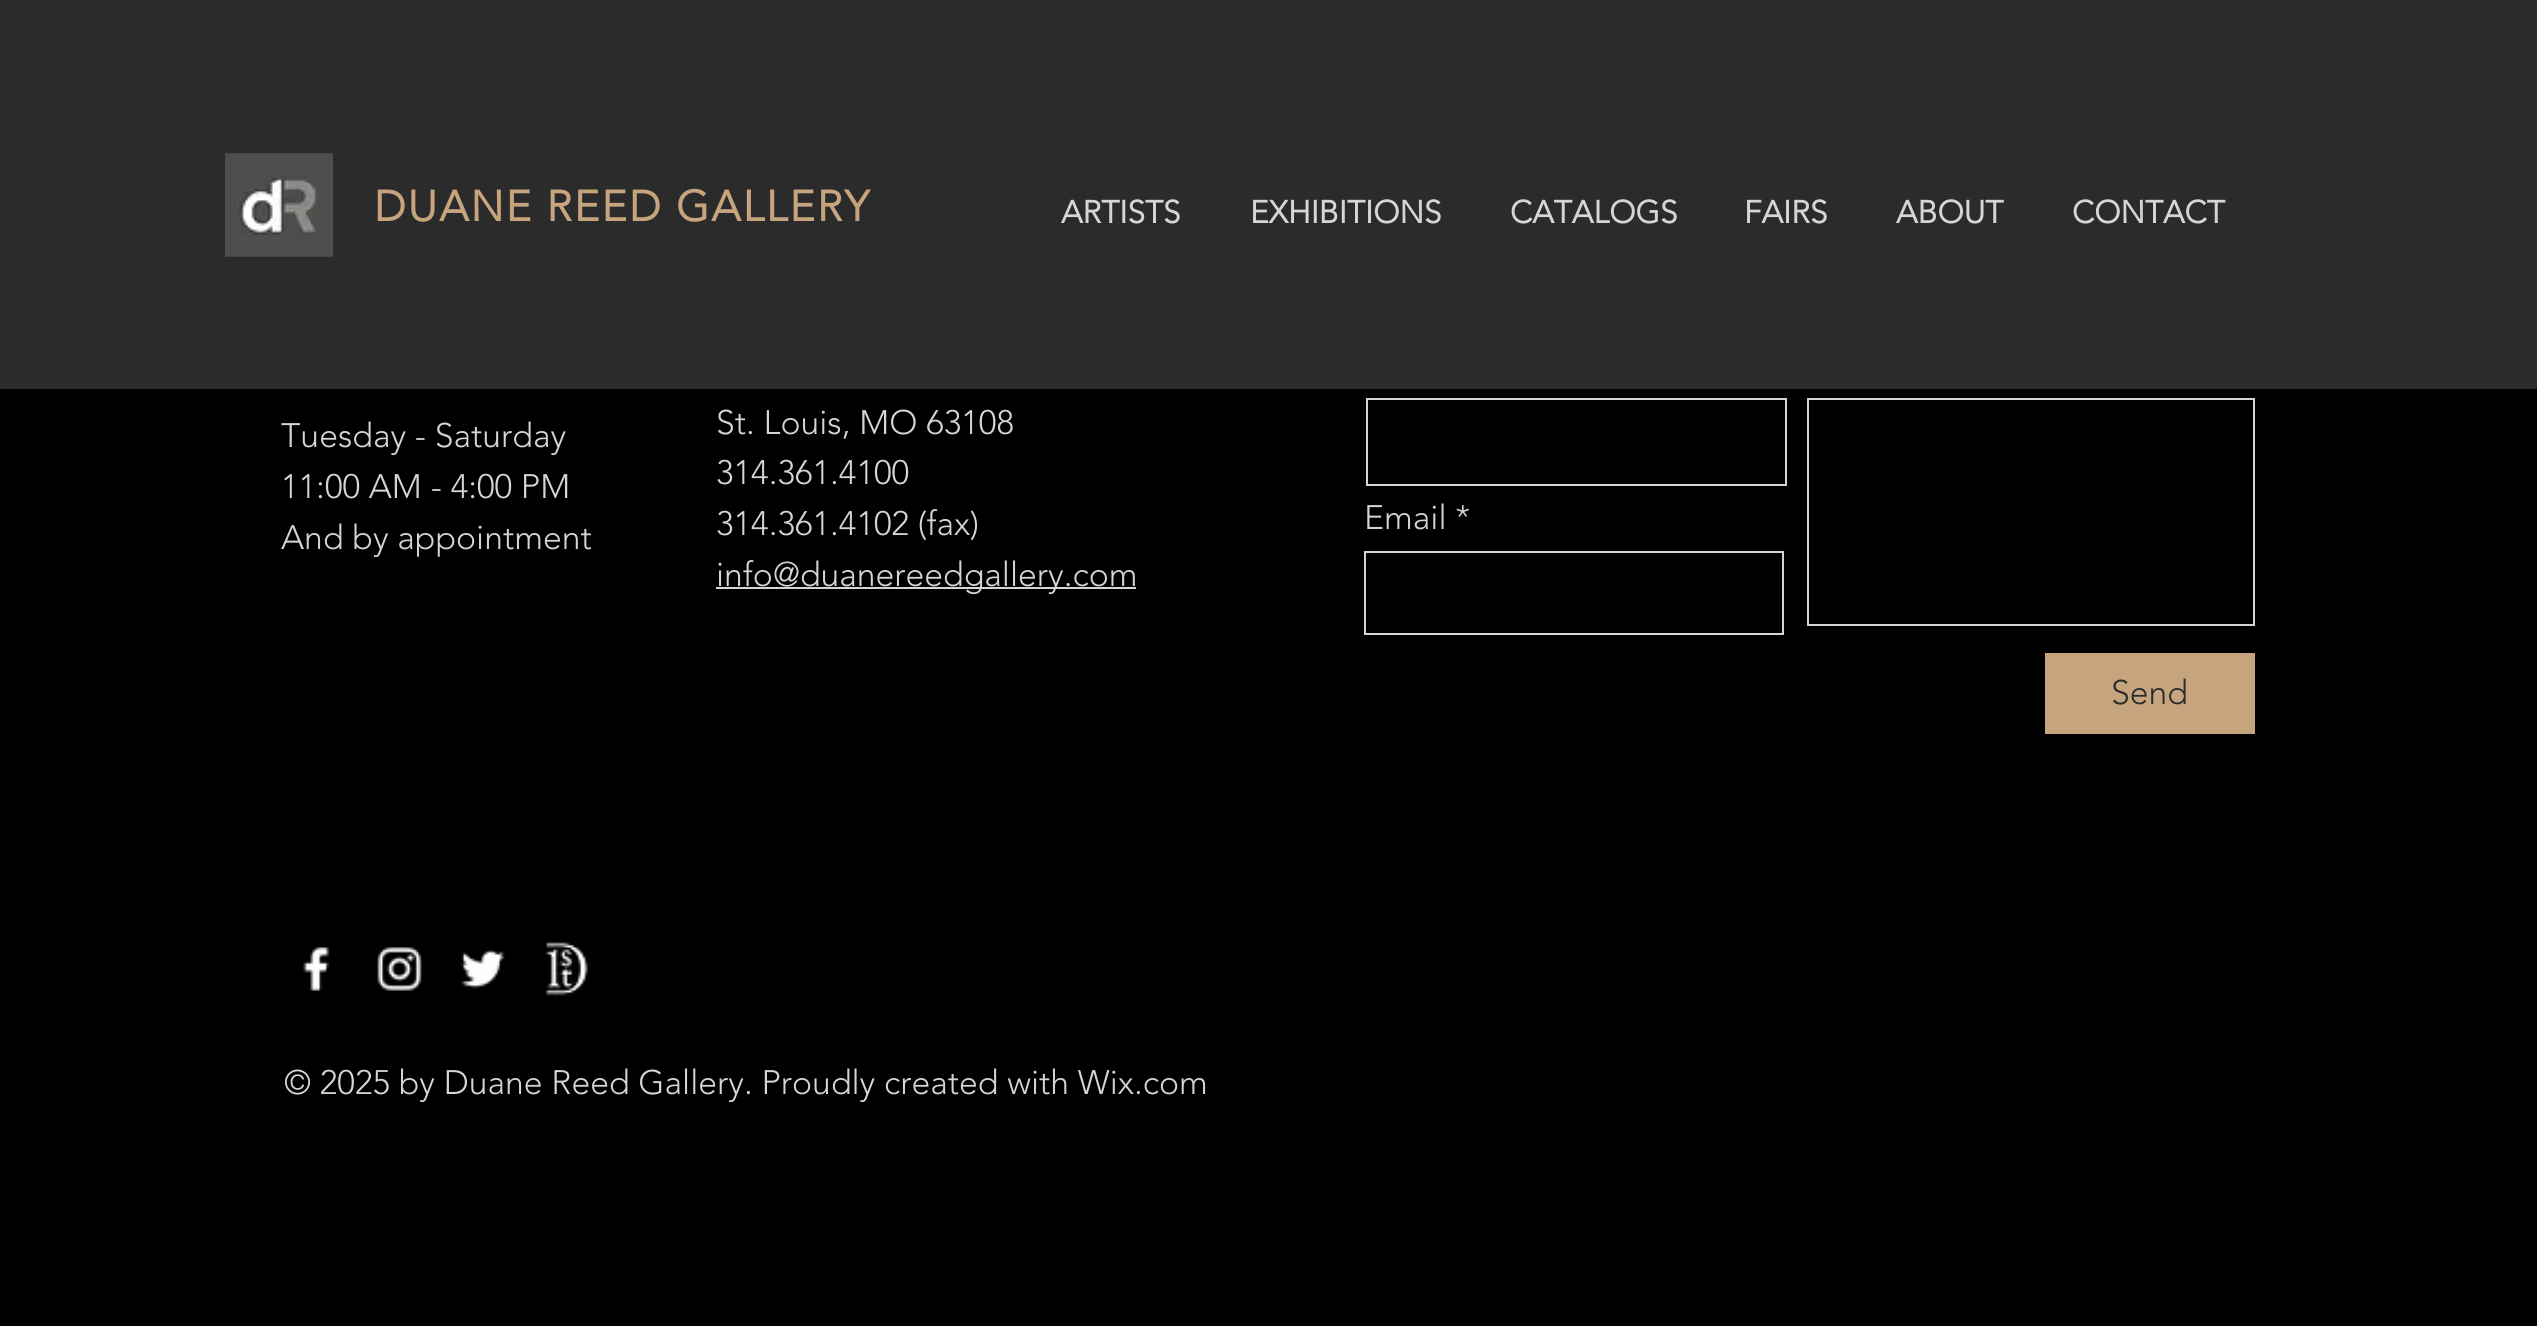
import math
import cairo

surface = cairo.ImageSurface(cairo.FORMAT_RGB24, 2537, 1326)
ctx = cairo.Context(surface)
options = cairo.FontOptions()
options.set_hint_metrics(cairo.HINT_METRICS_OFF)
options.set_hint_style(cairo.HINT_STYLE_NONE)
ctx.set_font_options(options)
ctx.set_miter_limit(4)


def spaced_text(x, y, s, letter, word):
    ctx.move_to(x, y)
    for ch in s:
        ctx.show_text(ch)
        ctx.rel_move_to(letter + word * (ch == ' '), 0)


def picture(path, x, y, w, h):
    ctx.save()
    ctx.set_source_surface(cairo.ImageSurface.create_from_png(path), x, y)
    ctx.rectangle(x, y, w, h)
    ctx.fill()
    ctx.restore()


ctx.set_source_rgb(0, 0, 0)
ctx.paint()
ctx.set_source_rgb(0.169, 0.169, 0.169)
ctx.rectangle(0, 0, 2537, 389)
ctx.fill()
picture("img1.png", 225, 153, 108, 104)
ctx.select_font_face("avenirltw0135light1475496", cairo.FONT_SLANT_NORMAL, cairo.FONT_WEIGHT_BOLD)
ctx.set_font_size(42.75)
ctx.set_source_rgb(0.776, 0.643, 0.494)
spaced_text(374, 221, "DUANE REED GALLERY", 2.1, 0)
ctx.set_font_size(31.5)
ctx.set_source_rgb(0.835, 0.835, 0.835)
ctx.move_to(1061, 223)
ctx.show_text("ARTISTS")
ctx.move_to(1250, 223)
ctx.show_text("EXHIBITIONS")
ctx.move_to(1510, 223)
ctx.show_text("CATALOGS")
ctx.move_to(1744, 223)
ctx.show_text("FAIRS")
ctx.move_to(1896, 223)
ctx.show_text("ABOUT")
ctx.move_to(2072, 223)
ctx.show_text("CONTACT")
ctx.select_font_face("avenirltw0135light1475496 Light")
ctx.set_font_size(33.75)
ctx.move_to(281, 447)
ctx.show_text("Tuesday - Saturday")
ctx.move_to(281, 498)
ctx.show_text("11:00 AM - 4:00 PM")
ctx.move_to(281, 549)
ctx.show_text("And by appointment")
ctx.move_to(716, 434)
ctx.show_text("St. Louis, MO 63108")
ctx.move_to(716, 484)
ctx.show_text("314.361.4100")
ctx.move_to(716, 535)
ctx.show_text("314.361.4102 (fax)")
ctx.rectangle(716, 587, 420, 2)
ctx.fill()
ctx.move_to(716, 586)
ctx.show_text("info@duanereedgallery.com")
ctx.rectangle(1367, 399, 419, 86)
ctx.stroke()
ctx.rectangle(1808, 399, 446, 226)
ctx.stroke()
ctx.move_to(1364, 529)
ctx.show_text("Email *")
ctx.rectangle(1365, 552, 418, 82)
ctx.stroke()
ctx.set_source_rgb(0.776, 0.643, 0.494)
ctx.rectangle(2045, 653, 210, 81)
ctx.fill()
ctx.set_source_rgb(0.169, 0.169, 0.169)
ctx.move_to(2111, 704)
ctx.show_text("Send")
picture("img2.png", 303, 947, 27, 44)
picture("img3.png", 377, 947, 45, 44)
picture("img4.png", 460, 949, 45, 40)
picture("img5.png", 546, 941, 45, 55)
ctx.set_source_rgb(0.835, 0.835, 0.835)
ctx.move_to(284, 1094)
ctx.show_text("© 2025 by Duane Reed Gallery. Proudly created with Wix.com")
surface.write_to_png("page.png")
